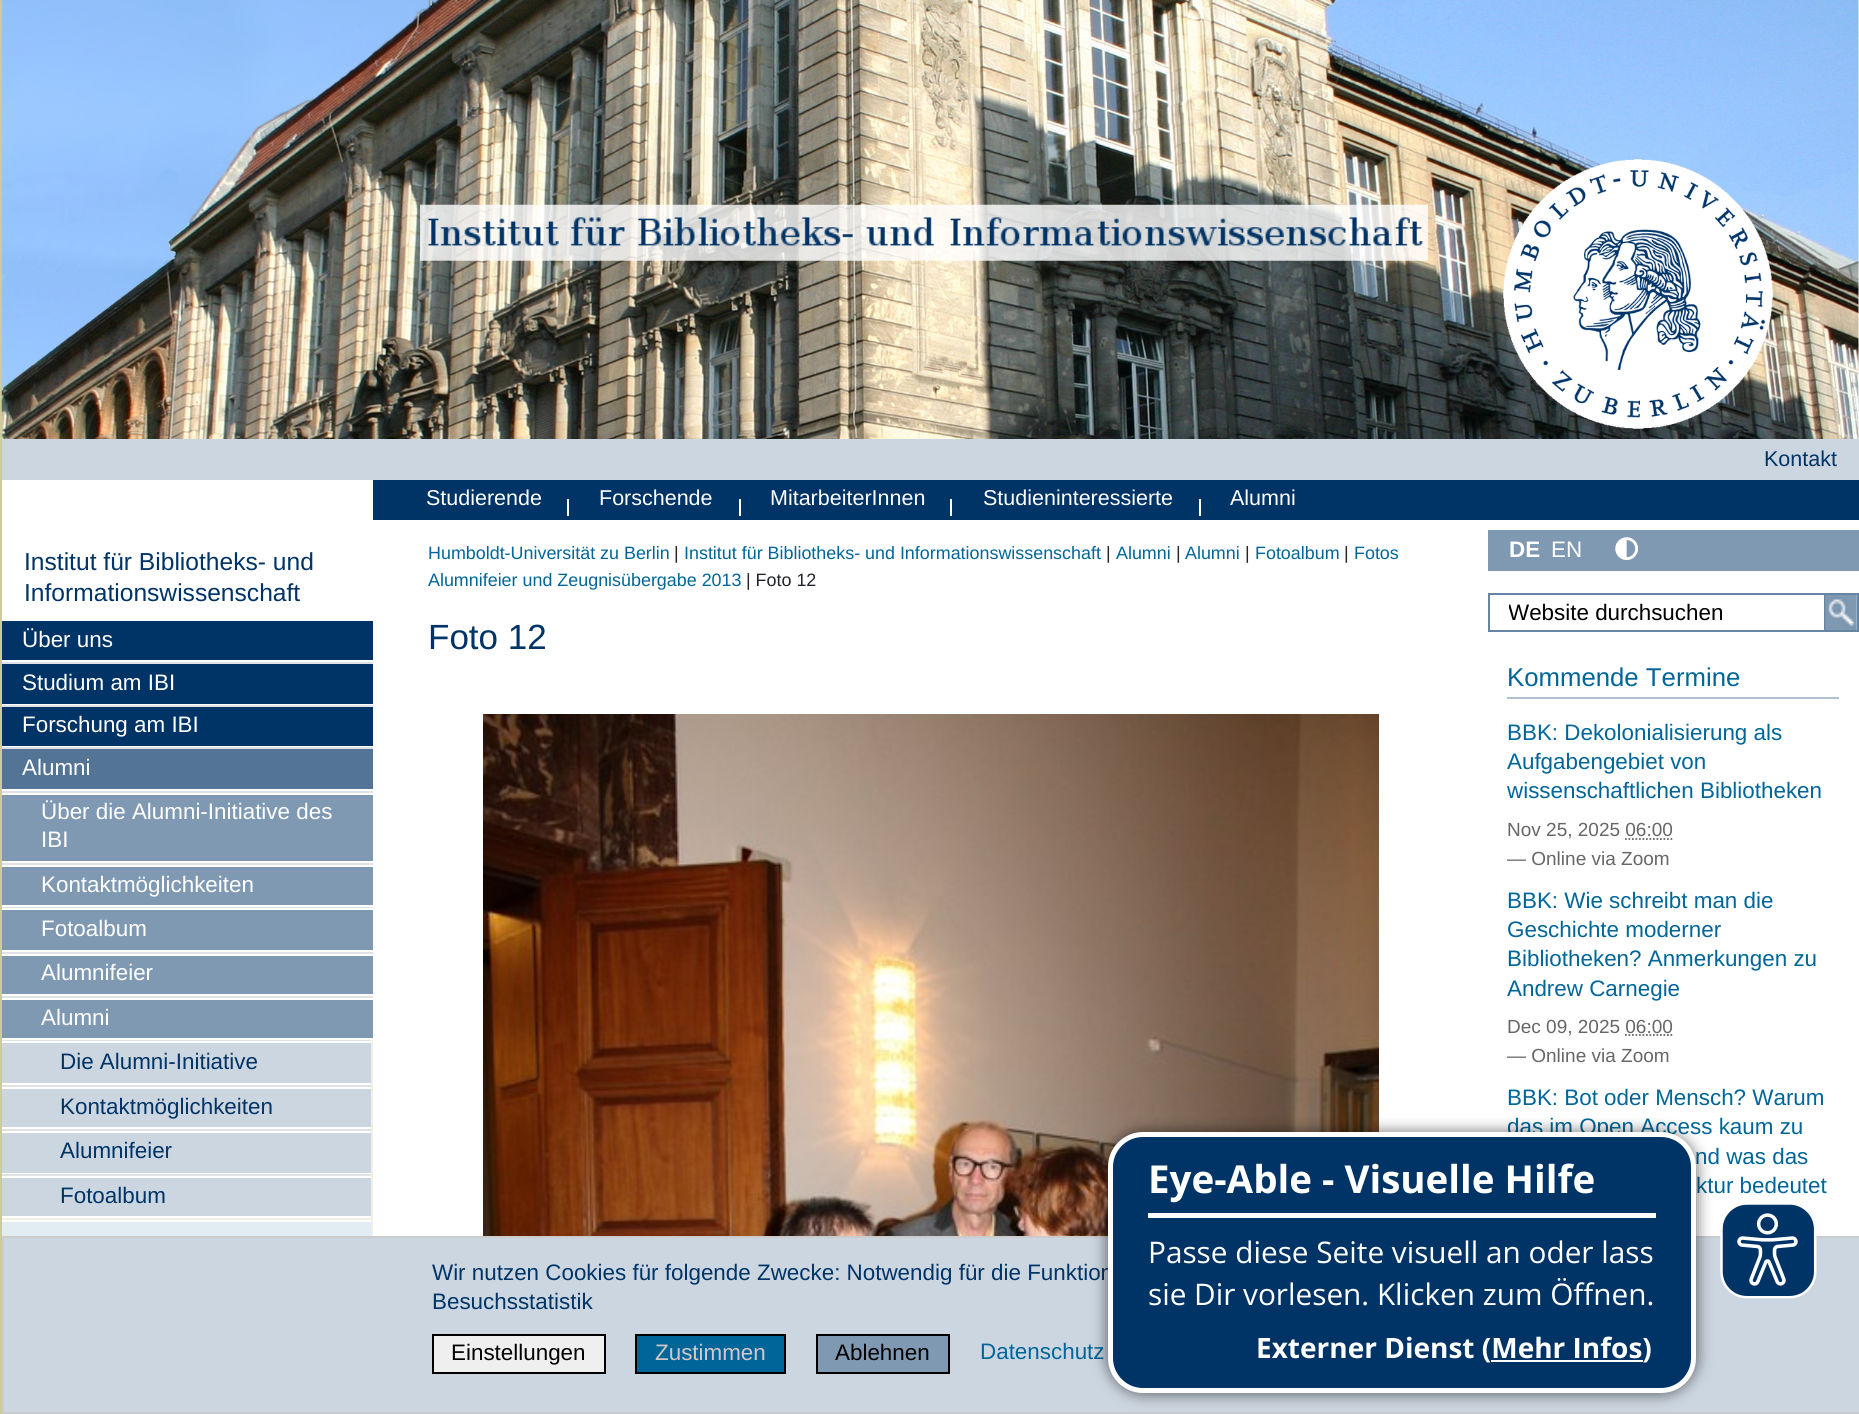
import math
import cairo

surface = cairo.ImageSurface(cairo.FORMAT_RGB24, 1859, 1414)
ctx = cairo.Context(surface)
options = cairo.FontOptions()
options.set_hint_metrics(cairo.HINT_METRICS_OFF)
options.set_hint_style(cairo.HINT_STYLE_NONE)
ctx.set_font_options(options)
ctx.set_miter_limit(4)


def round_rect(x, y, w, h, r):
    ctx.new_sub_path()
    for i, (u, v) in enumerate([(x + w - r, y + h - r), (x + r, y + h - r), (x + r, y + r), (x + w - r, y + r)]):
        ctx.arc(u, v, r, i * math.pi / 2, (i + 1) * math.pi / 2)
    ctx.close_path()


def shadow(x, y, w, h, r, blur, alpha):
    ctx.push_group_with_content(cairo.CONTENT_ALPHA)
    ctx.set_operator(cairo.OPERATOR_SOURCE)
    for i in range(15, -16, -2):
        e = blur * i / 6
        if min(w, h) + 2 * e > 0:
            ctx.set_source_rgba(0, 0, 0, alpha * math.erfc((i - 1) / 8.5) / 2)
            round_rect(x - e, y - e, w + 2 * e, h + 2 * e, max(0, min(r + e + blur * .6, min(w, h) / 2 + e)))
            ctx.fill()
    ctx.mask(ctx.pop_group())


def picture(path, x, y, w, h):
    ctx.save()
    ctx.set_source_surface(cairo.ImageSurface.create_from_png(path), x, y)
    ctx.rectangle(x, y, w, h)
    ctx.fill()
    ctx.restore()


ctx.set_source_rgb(1, 1, 1)
ctx.paint()
ctx.set_source_rgb(0.8, 0.8, 0.6)
ctx.rectangle(0, 0, 2, 1414)
ctx.fill()
picture("img1.png", 1, 0, 1858, 440)
picture("img2.png", 420, 204, 1008, 57)
picture("img3.png", 1503, 159, 270, 270)
ctx.select_font_face("Liberation Sans")
ctx.set_font_size(24.6)
ctx.set_source_rgb(0, 0.2, 0.4)
ctx.move_to(24, 570)
ctx.show_text("Institut für Bibliotheks- und")
ctx.move_to(24, 601)
ctx.show_text("Informationswissenschaft")
ctx.rectangle(2, 621, 371, 39)
ctx.fill()
ctx.set_font_size(22.4)
ctx.set_source_rgb(1, 1, 1)
ctx.move_to(22, 647)
ctx.show_text("Über uns")
ctx.set_source_rgb(0, 0.2, 0.4)
ctx.rectangle(2, 664, 371, 40)
ctx.fill()
ctx.set_source_rgb(0.871, 0.886, 0.902)
ctx.rectangle(2, 662, 371, 2)
ctx.fill()
ctx.set_source_rgb(1, 1, 1)
ctx.move_to(22, 690)
ctx.show_text("Studium am IBI")
ctx.set_source_rgb(0, 0.2, 0.4)
ctx.rectangle(2, 707, 371, 39)
ctx.fill()
ctx.set_source_rgb(0.871, 0.886, 0.902)
ctx.rectangle(2, 705, 371, 2)
ctx.fill()
ctx.set_source_rgb(1, 1, 1)
ctx.move_to(22, 732)
ctx.show_text("Forschung am IBI")
ctx.set_source_rgb(0.329, 0.455, 0.584)
ctx.rectangle(2, 749, 371, 40)
ctx.fill()
ctx.set_source_rgb(0.871, 0.886, 0.902)
ctx.rectangle(2, 747, 371, 2)
ctx.fill()
ctx.set_source_rgb(1, 1, 1)
ctx.move_to(22, 775)
ctx.show_text("Alumni")
ctx.set_source_rgb(0.502, 0.6, 0.698)
ctx.rectangle(2, 795, 371, 66)
ctx.fill()
ctx.set_source_rgb(0.871, 0.886, 0.902)
ctx.rectangle(2, 791, 371, 2)
ctx.fill()
ctx.set_source_rgb(1, 1, 1)
ctx.move_to(41, 819)
ctx.show_text("Über die Alumni-Initiative des")
ctx.move_to(41, 847)
ctx.show_text("IBI")
ctx.set_source_rgb(0.502, 0.6, 0.698)
ctx.rectangle(2, 867, 371, 38)
ctx.fill()
ctx.set_source_rgb(0.871, 0.886, 0.902)
ctx.rectangle(2, 863, 371, 2)
ctx.fill()
ctx.set_source_rgb(1, 1, 1)
ctx.move_to(41, 892)
ctx.show_text("Kontaktmöglichkeiten")
ctx.set_source_rgb(0.502, 0.6, 0.698)
ctx.rectangle(2, 910, 371, 40)
ctx.fill()
ctx.set_source_rgb(0.871, 0.886, 0.902)
ctx.rectangle(2, 907, 371, 1)
ctx.fill()
ctx.set_source_rgb(1, 1, 1)
ctx.move_to(41, 936)
ctx.show_text("Fotoalbum")
ctx.set_source_rgb(0.502, 0.6, 0.698)
ctx.rectangle(2, 956, 371, 38)
ctx.fill()
ctx.set_source_rgb(0.871, 0.886, 0.902)
ctx.rectangle(2, 952, 371, 2)
ctx.fill()
ctx.set_source_rgb(1, 1, 1)
ctx.move_to(41, 980)
ctx.show_text("Alumnifeier")
ctx.set_source_rgb(0.502, 0.6, 0.698)
ctx.rectangle(2, 1000, 371, 38)
ctx.fill()
ctx.set_source_rgb(0.871, 0.886, 0.902)
ctx.rectangle(2, 996, 371, 2)
ctx.fill()
ctx.set_source_rgb(1, 1, 1)
ctx.move_to(41, 1025)
ctx.show_text("Alumni")
ctx.set_source_rgb(0.8, 0.839, 0.878)
ctx.rectangle(2, 1043, 369, 40)
ctx.fill()
ctx.set_source_rgb(0.871, 0.886, 0.902)
ctx.rectangle(2, 1040, 371, 1)
ctx.fill()
ctx.set_source_rgb(0.941, 0.941, 0.91)
ctx.rectangle(371, 1040, 2, 45)
ctx.fill()
ctx.set_source_rgb(0, 0.2, 0.4)
ctx.move_to(60, 1069)
ctx.show_text("Die Alumni-Initiative")
ctx.set_source_rgb(0.8, 0.839, 0.878)
ctx.rectangle(2, 1089, 369, 38)
ctx.fill()
ctx.set_source_rgb(0.871, 0.886, 0.902)
ctx.rectangle(2, 1085, 371, 2)
ctx.fill()
ctx.set_source_rgb(0.941, 0.941, 0.91)
ctx.rectangle(371, 1085, 2, 44)
ctx.fill()
ctx.set_source_rgb(0, 0.2, 0.4)
ctx.move_to(60, 1114)
ctx.show_text("Kontaktmöglichkeiten")
ctx.set_source_rgb(0.8, 0.839, 0.878)
ctx.rectangle(2, 1133, 369, 40)
ctx.fill()
ctx.set_source_rgb(0.871, 0.886, 0.902)
ctx.rectangle(2, 1129, 371, 2)
ctx.fill()
ctx.set_source_rgb(0.941, 0.941, 0.91)
ctx.rectangle(371, 1129, 2, 45)
ctx.fill()
ctx.set_source_rgb(0, 0.2, 0.4)
ctx.move_to(60, 1158)
ctx.show_text("Alumnifeier")
ctx.set_source_rgb(0.8, 0.839, 0.878)
ctx.rectangle(2, 1178, 369, 38)
ctx.fill()
ctx.set_source_rgb(0.871, 0.886, 0.902)
ctx.rectangle(2, 1174, 371, 2)
ctx.fill()
ctx.set_source_rgb(0.941, 0.941, 0.91)
ctx.rectangle(371, 1174, 2, 62)
ctx.fill()
ctx.set_source_rgb(0, 0.2, 0.4)
ctx.move_to(60, 1203)
ctx.show_text("Fotoalbum")
ctx.set_source_rgb(0.886, 0.922, 0.953)
ctx.rectangle(2, 1222, 369, 14)
ctx.fill()
ctx.set_source_rgb(0.941, 0.941, 0.91)
ctx.rectangle(2, 1218, 369, 2)
ctx.fill()
ctx.set_source_rgb(0.8, 0.839, 0.878)
ctx.rectangle(2, 439, 1857, 41)
ctx.fill()
ctx.set_font_size(21.5)
ctx.set_source_rgb(0, 0.2, 0.4)
ctx.move_to(1764, 466)
ctx.show_text("Kontakt")
ctx.rectangle(373, 480, 1486, 40)
ctx.fill()
ctx.set_source_rgb(1, 1, 1)
ctx.move_to(426, 505)
ctx.show_text("Studierende")
ctx.rectangle(567, 499, 2, 17)
ctx.fill()
ctx.move_to(599, 505)
ctx.show_text("Forschende")
ctx.rectangle(739, 499, 2, 17)
ctx.fill()
ctx.move_to(770, 505)
ctx.show_text("MitarbeiterInnen")
ctx.rectangle(950, 499, 2, 17)
ctx.fill()
ctx.move_to(983, 505)
ctx.show_text("Studieninteressierte")
ctx.rectangle(1199, 499, 2, 17)
ctx.fill()
ctx.move_to(1230, 505)
ctx.show_text("Alumni")
ctx.set_font_size(17.9)
ctx.set_source_rgb(0, 0.4, 0.6)
ctx.move_to(428, 559)
ctx.show_text("Humboldt-Universität zu Berlin")
ctx.set_source_rgb(0.129, 0.145, 0.161)
ctx.move_to(674, 559)
ctx.show_text("|")
ctx.set_source_rgb(0, 0.4, 0.6)
ctx.move_to(684, 559)
ctx.show_text("Institut für Bibliotheks- und Informationswissenschaft")
ctx.set_source_rgb(0.129, 0.145, 0.161)
ctx.move_to(1106, 559)
ctx.show_text("|")
ctx.set_source_rgb(0, 0.4, 0.6)
ctx.move_to(1116, 559)
ctx.show_text("Alumni")
ctx.set_source_rgb(0.129, 0.145, 0.161)
ctx.move_to(1176, 559)
ctx.show_text("|")
ctx.set_source_rgb(0, 0.4, 0.6)
ctx.move_to(1185, 559)
ctx.show_text("Alumni")
ctx.set_source_rgb(0.129, 0.145, 0.161)
ctx.move_to(1245, 559)
ctx.show_text("|")
ctx.set_source_rgb(0, 0.4, 0.6)
ctx.move_to(1255, 559)
ctx.show_text("Fotoalbum")
ctx.set_source_rgb(0.129, 0.145, 0.161)
ctx.move_to(1344, 559)
ctx.show_text("|")
ctx.set_source_rgb(0, 0.4, 0.6)
ctx.move_to(1354, 559)
ctx.show_text("Fotos")
ctx.move_to(428, 586)
ctx.show_text("Alumnifeier und Zeugnisübergabe 2013")
ctx.set_source_rgb(0.129, 0.145, 0.161)
ctx.move_to(746, 586)
ctx.show_text("| Foto 12")
ctx.set_font_size(35)
ctx.set_source_rgb(0, 0.2, 0.4)
ctx.move_to(428, 649)
ctx.show_text("Foto 12")
picture("img4.png", 483, 714, 896, 522)
ctx.set_source_rgb(0.502, 0.6, 0.698)
ctx.rectangle(1488, 530, 371, 41)
ctx.fill()
ctx.select_font_face("Liberation Sans", cairo.FONT_SLANT_NORMAL, cairo.FONT_WEIGHT_BOLD)
ctx.set_font_size(22.4)
ctx.set_source_rgb(1, 1, 1)
ctx.move_to(1509, 557)
ctx.show_text("DE")
ctx.select_font_face("Liberation Sans")
ctx.move_to(1551, 557)
ctx.show_text("EN")
picture("img5.png", 1615, 537, 23, 23)
ctx.rectangle(1489, 594, 369, 37)
ctx.set_source_rgb(0.4, 0.522, 0.639)
ctx.stroke()
ctx.save()
ctx.rectangle(1509, 599, 329, 26)
ctx.clip()
ctx.set_source_rgb(0, 0, 0)
ctx.move_to(1508, 620)
ctx.show_text("Website durchsuchen")
ctx.restore()
ctx.rectangle(1825, 594, 33, 37)
ctx.stroke()
picture("img6.png", 1825, 595, 32, 35)
ctx.set_source_rgb(0.698, 0.757, 0.82)
ctx.rectangle(1507, 697, 332, 2)
ctx.fill()
ctx.set_font_size(25.75)
ctx.set_source_rgb(0, 0.4, 0.6)
ctx.move_to(1507, 686)
ctx.show_text("Kommende Termine")
ctx.set_font_size(22.4)
ctx.move_to(1507, 740)
ctx.show_text("BBK: Dekolonialisierung als")
ctx.move_to(1507, 769)
ctx.show_text("Aufgabengebiet von")
ctx.move_to(1507, 798)
ctx.show_text("wissenschaftlichen Bibliotheken")
ctx.set_font_size(19)
ctx.set_source_rgb(0.4, 0.4, 0.4)
ctx.move_to(1507, 836)
ctx.show_text("Nov 25, 2025 06:00")
ctx.new_path()
ctx.move_to(1625, 839)
ctx.line_to(1672.5, 839)
ctx.set_line_width(1.8)
ctx.set_dash([1.75, 1.75])
ctx.stroke()
ctx.move_to(1507, 865)
ctx.show_text("— Online via Zoom")
ctx.set_font_size(22.4)
ctx.set_source_rgb(0, 0.4, 0.6)
ctx.move_to(1507, 908)
ctx.show_text("BBK: Wie schreibt man die")
ctx.move_to(1507, 937)
ctx.show_text("Geschichte moderner")
ctx.move_to(1507, 966)
ctx.show_text("Bibliotheken? Anmerkungen zu")
ctx.move_to(1507, 996)
ctx.show_text("Andrew Carnegie")
ctx.set_font_size(19)
ctx.set_source_rgb(0.4, 0.4, 0.4)
ctx.move_to(1507, 1033)
ctx.show_text("Dec 09, 2025 06:00")
ctx.new_path()
ctx.move_to(1625, 1035)
ctx.line_to(1672.5, 1035)
ctx.stroke()
ctx.move_to(1507, 1062)
ctx.show_text("— Online via Zoom")
ctx.set_font_size(22.4)
ctx.set_source_rgb(0, 0.4, 0.6)
ctx.move_to(1507, 1105)
ctx.show_text("BBK: Bot oder Mensch? Warum")
ctx.move_to(1507, 1134)
ctx.show_text("das im Open Access kaum zu")
ctx.move_to(1695, 1164)
ctx.show_text("nd was das")
ctx.move_to(1696, 1193)
ctx.show_text("ktur bedeutet")
ctx.set_source_rgb(0.8, 0.839, 0.878)
ctx.rectangle(3, 1237, 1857, 176)
ctx.fill_preserve()
ctx.set_source_rgb(0.8, 0.8, 0.8)
ctx.set_line_width(2)
ctx.set_dash([])
ctx.stroke()
ctx.set_source_rgb(0, 0.2, 0.4)
ctx.move_to(432, 1280)
ctx.show_text("Wir nutzen Cookies für folgende Zwecke: Notwendig für die Funktion")
ctx.move_to(432, 1309)
ctx.show_text("Besuchsstatistik")
ctx.set_source_rgb(0.937, 0.937, 0.937)
ctx.rectangle(433, 1335, 172, 38)
ctx.fill_preserve()
ctx.set_source_rgb(0, 0, 0)
ctx.stroke()
ctx.move_to(451, 1360)
ctx.show_text("Einstellungen")
ctx.set_source_rgb(0, 0.4, 0.6)
ctx.rectangle(636, 1335, 149, 38)
ctx.fill_preserve()
ctx.set_source_rgb(0, 0, 0)
ctx.stroke()
ctx.set_source_rgb(0.835, 0.78, 0.78)
ctx.move_to(655, 1360)
ctx.show_text("Zustimmen")
ctx.set_source_rgb(0.502, 0.6, 0.698)
ctx.rectangle(817, 1335, 132, 38)
ctx.fill_preserve()
ctx.set_source_rgb(0, 0, 0)
ctx.stroke()
ctx.move_to(835, 1360)
ctx.show_text("Ablehnen")
ctx.set_source_rgb(0, 0.4, 0.6)
ctx.move_to(980, 1359)
ctx.show_text("Datenschutz")
ctx.set_source_rgb(0, 0, 0)
shadow(1106, 1131, 592, 264, 37, 7, 0.5)
ctx.set_source_rgb(0, 0.2, 0.4)
round_rect(1110.5, 1134.5, 583, 256, 32.5)
ctx.fill_preserve()
ctx.set_source_rgb(1, 1, 1)
ctx.set_line_width(5)
ctx.stroke()
ctx.rectangle(1148, 1213, 508, 5)
ctx.fill()
ctx.select_font_face("Open Sans", cairo.FONT_SLANT_NORMAL, cairo.FONT_WEIGHT_BOLD)
ctx.set_font_size(38.5)
ctx.move_to(1148, 1193)
ctx.show_text("Eye-Able - Visuelle Hilfe")
ctx.select_font_face("Open Sans")
ctx.set_font_size(29.75)
ctx.move_to(1148, 1263)
ctx.show_text("Passe diese Seite visuell an oder lass")
ctx.move_to(1148, 1305)
ctx.show_text("sie Dir vorlesen. Klicken zum Öffnen.")
ctx.select_font_face("Open Sans", cairo.FONT_SLANT_NORMAL, cairo.FONT_WEIGHT_BOLD)
ctx.set_font_size(28)
ctx.move_to(1256, 1358)
ctx.show_text("Externer Dienst (Mehr Infos)")
ctx.rectangle(1491, 1360, 152, 2)
ctx.fill()
picture("img7.png", 1720, 1204, 97, 95)
surface.write_to_png("page.png")
